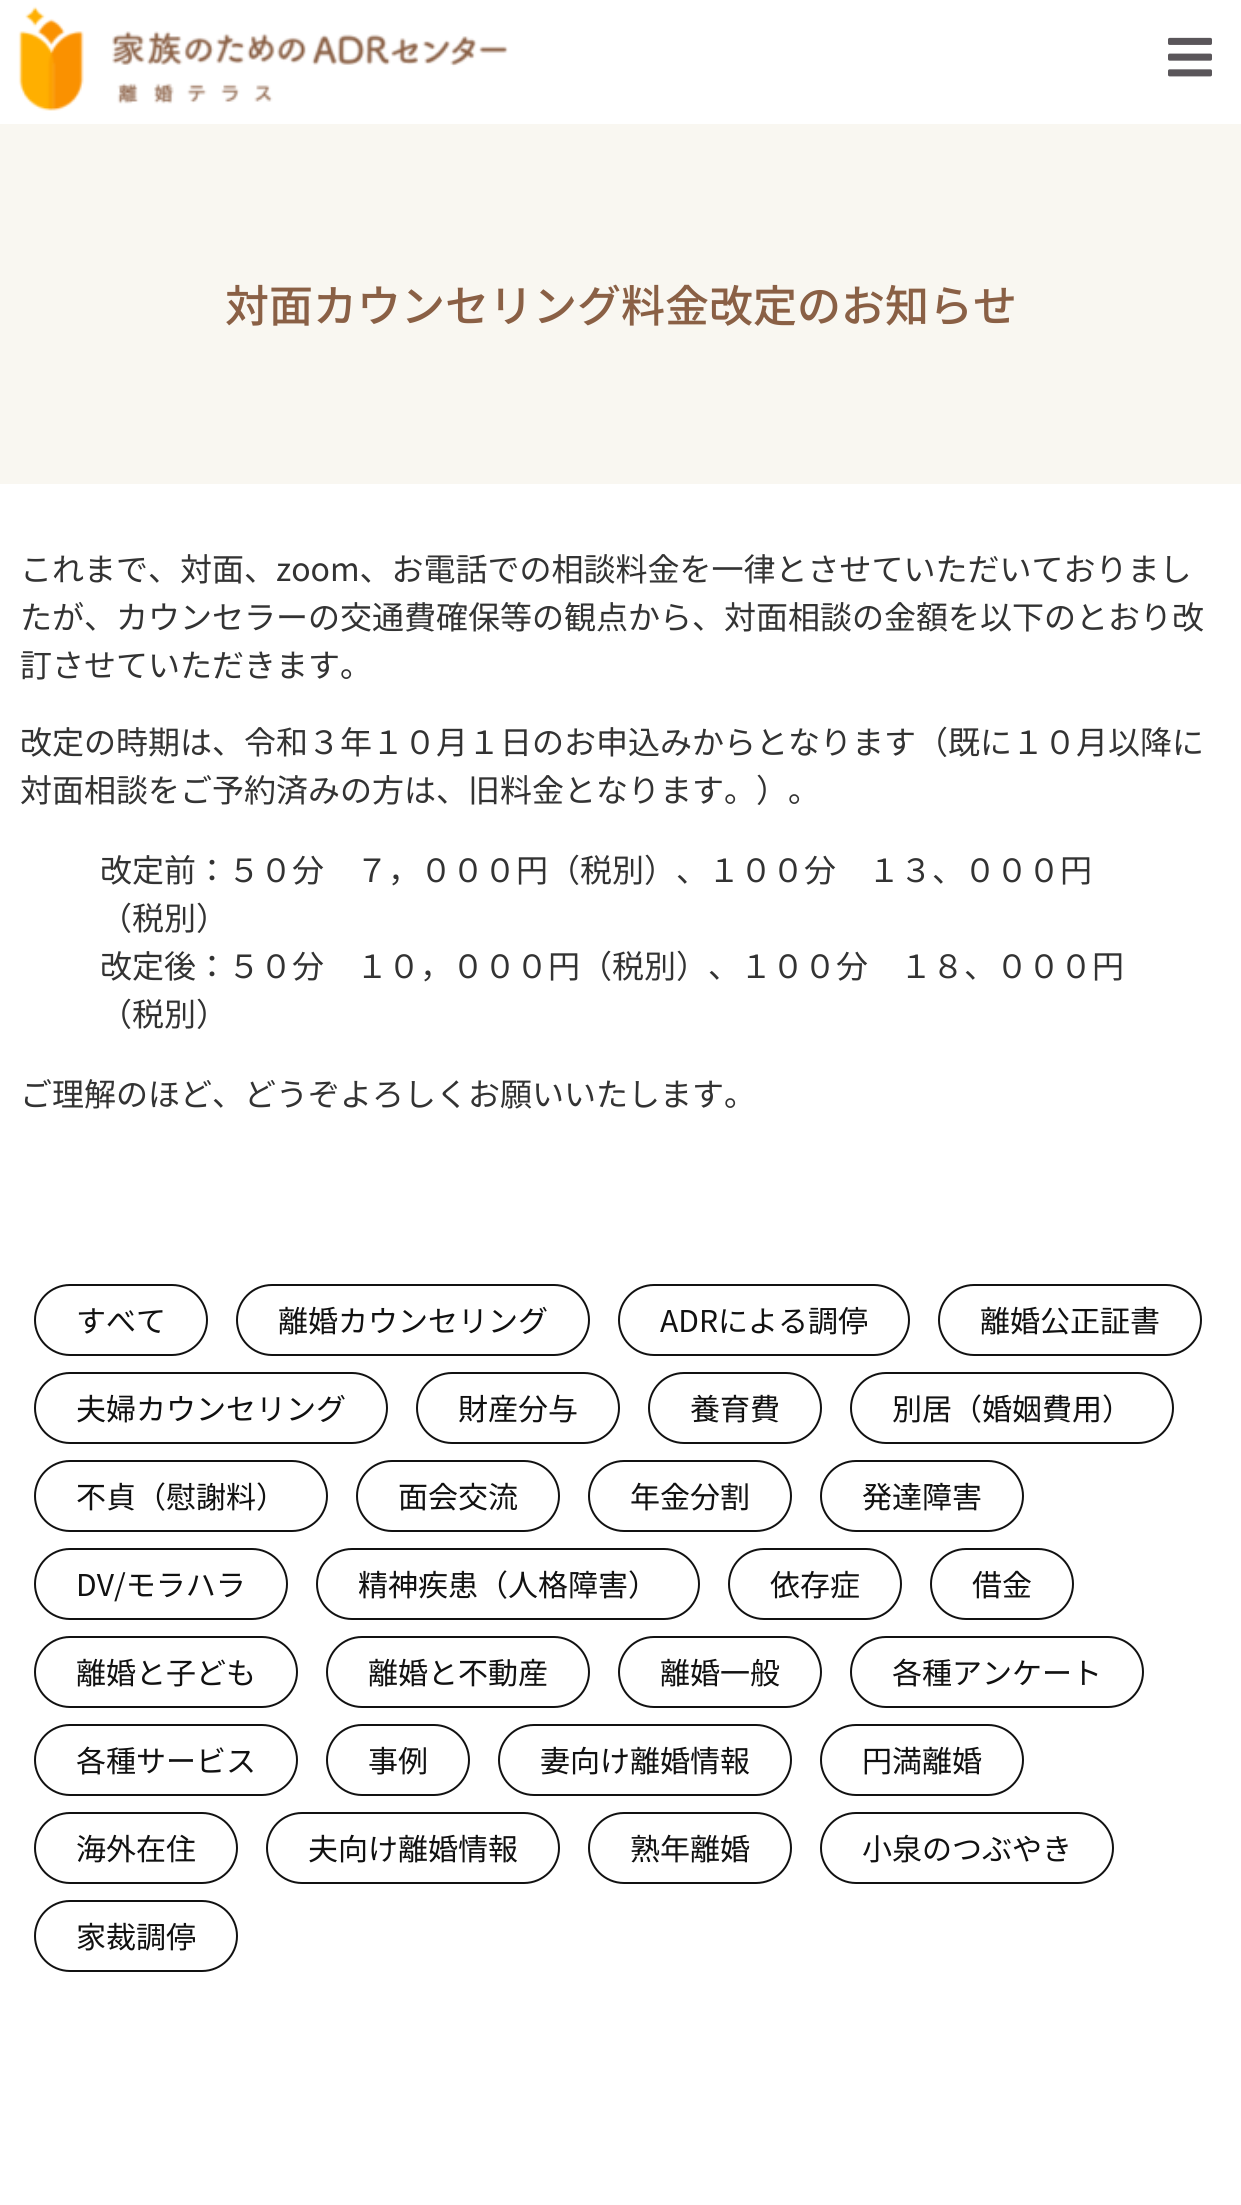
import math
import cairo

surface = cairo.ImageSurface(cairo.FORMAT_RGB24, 1241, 2205)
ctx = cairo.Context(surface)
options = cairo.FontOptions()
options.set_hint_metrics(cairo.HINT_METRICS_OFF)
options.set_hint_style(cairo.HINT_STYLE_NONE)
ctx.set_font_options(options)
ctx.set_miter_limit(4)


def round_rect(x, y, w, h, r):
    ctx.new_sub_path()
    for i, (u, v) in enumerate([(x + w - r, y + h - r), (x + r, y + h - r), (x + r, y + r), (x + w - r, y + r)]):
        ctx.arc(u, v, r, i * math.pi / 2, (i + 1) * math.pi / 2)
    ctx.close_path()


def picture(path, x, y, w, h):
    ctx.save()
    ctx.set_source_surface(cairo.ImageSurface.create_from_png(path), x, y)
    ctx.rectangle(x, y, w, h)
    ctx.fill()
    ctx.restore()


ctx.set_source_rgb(1, 1, 1)
ctx.paint()
picture("img1.png", 18, 6, 490, 105)
picture("img2.png", 1168, 37, 44, 40)
ctx.set_source_rgb(0.973, 0.965, 0.945)
ctx.rectangle(0, 124, 1241, 360)
ctx.fill()
ctx.select_font_face("Noto Sans JP Medium")
ctx.set_font_size(44)
ctx.set_source_rgb(0.541, 0.376, 0.271)
ctx.move_to(225, 322)
ctx.show_text("対面カウンセリング料金改定のお知らせ")
ctx.select_font_face("Noto Sans JP")
ctx.set_font_size(32)
ctx.set_source_rgb(0.2, 0.2, 0.2)
ctx.move_to(20, 581)
ctx.show_text("これまで、対面、zoom、お電話での相談料金を一律とさせていただいておりまし")
ctx.move_to(20, 629)
ctx.show_text("たが、カウンセラーの交通費確保等の観点から、対面相談の金額を以下のとおり改")
ctx.move_to(20, 677)
ctx.show_text("訂させていただきます。")
ctx.move_to(20, 754)
ctx.show_text("改定の時期は、令和３年１０月１日のお申込みからとなります（既に１０月以降に")
ctx.move_to(20, 802)
ctx.show_text("対面相談をご予約済みの方は、旧料金となります。）。")
ctx.move_to(100, 882)
ctx.show_text("改定前：５０分　７，０００円（税別）、１００分　１３、０００円")
ctx.move_to(100, 930)
ctx.show_text("（税別）")
ctx.move_to(100, 978)
ctx.show_text("改定後：５０分　１０，０００円（税別）、１００分　１８、０００円")
ctx.move_to(100, 1026)
ctx.show_text("（税別）")
ctx.move_to(20, 1106)
ctx.show_text("ご理解のほど、どうぞよろしくお願いいたします。")
round_rect(35, 1285, 172, 70, 35)
ctx.set_source_rgb(0.067, 0.067, 0.067)
ctx.stroke()
ctx.set_font_size(30)
ctx.move_to(76, 1332)
ctx.show_text("すべて")
round_rect(237, 1285, 352, 70, 35)
ctx.stroke()
ctx.move_to(278, 1332)
ctx.show_text("離婚カウンセリング")
round_rect(619, 1285, 290, 70, 35)
ctx.stroke()
ctx.move_to(660, 1332)
ctx.show_text("ADRによる調停")
round_rect(939, 1285, 262, 70, 35)
ctx.stroke()
ctx.move_to(980, 1332)
ctx.show_text("離婚公正証書")
round_rect(35, 1373, 352, 70, 35)
ctx.stroke()
ctx.move_to(76, 1420)
ctx.show_text("夫婦カウンセリング")
round_rect(417, 1373, 202, 70, 35)
ctx.stroke()
ctx.move_to(458, 1420)
ctx.show_text("財産分与")
round_rect(649, 1373, 172, 70, 35)
ctx.stroke()
ctx.move_to(690, 1420)
ctx.show_text("養育費")
round_rect(851, 1373, 322, 70, 35)
ctx.stroke()
ctx.move_to(892, 1420)
ctx.show_text("別居（婚姻費用）")
round_rect(35, 1461, 292, 70, 35)
ctx.stroke()
ctx.move_to(76, 1508)
ctx.show_text("不貞（慰謝料）")
round_rect(357, 1461, 202, 70, 35)
ctx.stroke()
ctx.move_to(398, 1508)
ctx.show_text("面会交流")
round_rect(589, 1461, 202, 70, 35)
ctx.stroke()
ctx.move_to(630, 1508)
ctx.show_text("年金分割")
round_rect(821, 1461, 202, 70, 35)
ctx.stroke()
ctx.move_to(862, 1508)
ctx.show_text("発達障害")
round_rect(35, 1549, 252, 70, 35)
ctx.stroke()
ctx.move_to(76, 1596)
ctx.show_text("DV/モラハラ")
round_rect(317, 1549, 382, 70, 35)
ctx.stroke()
ctx.move_to(358, 1596)
ctx.show_text("精神疾患（人格障害）")
round_rect(729, 1549, 172, 70, 35)
ctx.stroke()
ctx.move_to(770, 1596)
ctx.show_text("依存症")
round_rect(931, 1549, 142, 70, 35)
ctx.stroke()
ctx.move_to(972, 1596)
ctx.show_text("借金")
round_rect(35, 1637, 262, 70, 35)
ctx.stroke()
ctx.move_to(76, 1684)
ctx.show_text("離婚と子ども")
round_rect(327, 1637, 262, 70, 35)
ctx.stroke()
ctx.move_to(368, 1684)
ctx.show_text("離婚と不動産")
round_rect(619, 1637, 202, 70, 35)
ctx.stroke()
ctx.move_to(660, 1684)
ctx.show_text("離婚一般")
round_rect(851, 1637, 292, 70, 35)
ctx.stroke()
ctx.move_to(892, 1684)
ctx.show_text("各種アンケート")
round_rect(35, 1725, 262, 70, 35)
ctx.stroke()
ctx.move_to(76, 1772)
ctx.show_text("各種サービス")
round_rect(327, 1725, 142, 70, 35)
ctx.stroke()
ctx.move_to(368, 1772)
ctx.show_text("事例")
round_rect(499, 1725, 292, 70, 35)
ctx.stroke()
ctx.move_to(540, 1772)
ctx.show_text("妻向け離婚情報")
round_rect(821, 1725, 202, 70, 35)
ctx.stroke()
ctx.move_to(862, 1772)
ctx.show_text("円満離婚")
round_rect(35, 1813, 202, 70, 35)
ctx.stroke()
ctx.move_to(76, 1860)
ctx.show_text("海外在住")
round_rect(267, 1813, 292, 70, 35)
ctx.stroke()
ctx.move_to(308, 1860)
ctx.show_text("夫向け離婚情報")
round_rect(589, 1813, 202, 70, 35)
ctx.stroke()
ctx.move_to(630, 1860)
ctx.show_text("熟年離婚")
round_rect(821, 1813, 292, 70, 35)
ctx.stroke()
ctx.move_to(862, 1860)
ctx.show_text("小泉のつぶやき")
round_rect(35, 1901, 202, 70, 35)
ctx.stroke()
ctx.move_to(76, 1948)
ctx.show_text("家裁調停")
surface.write_to_png("page.png")
